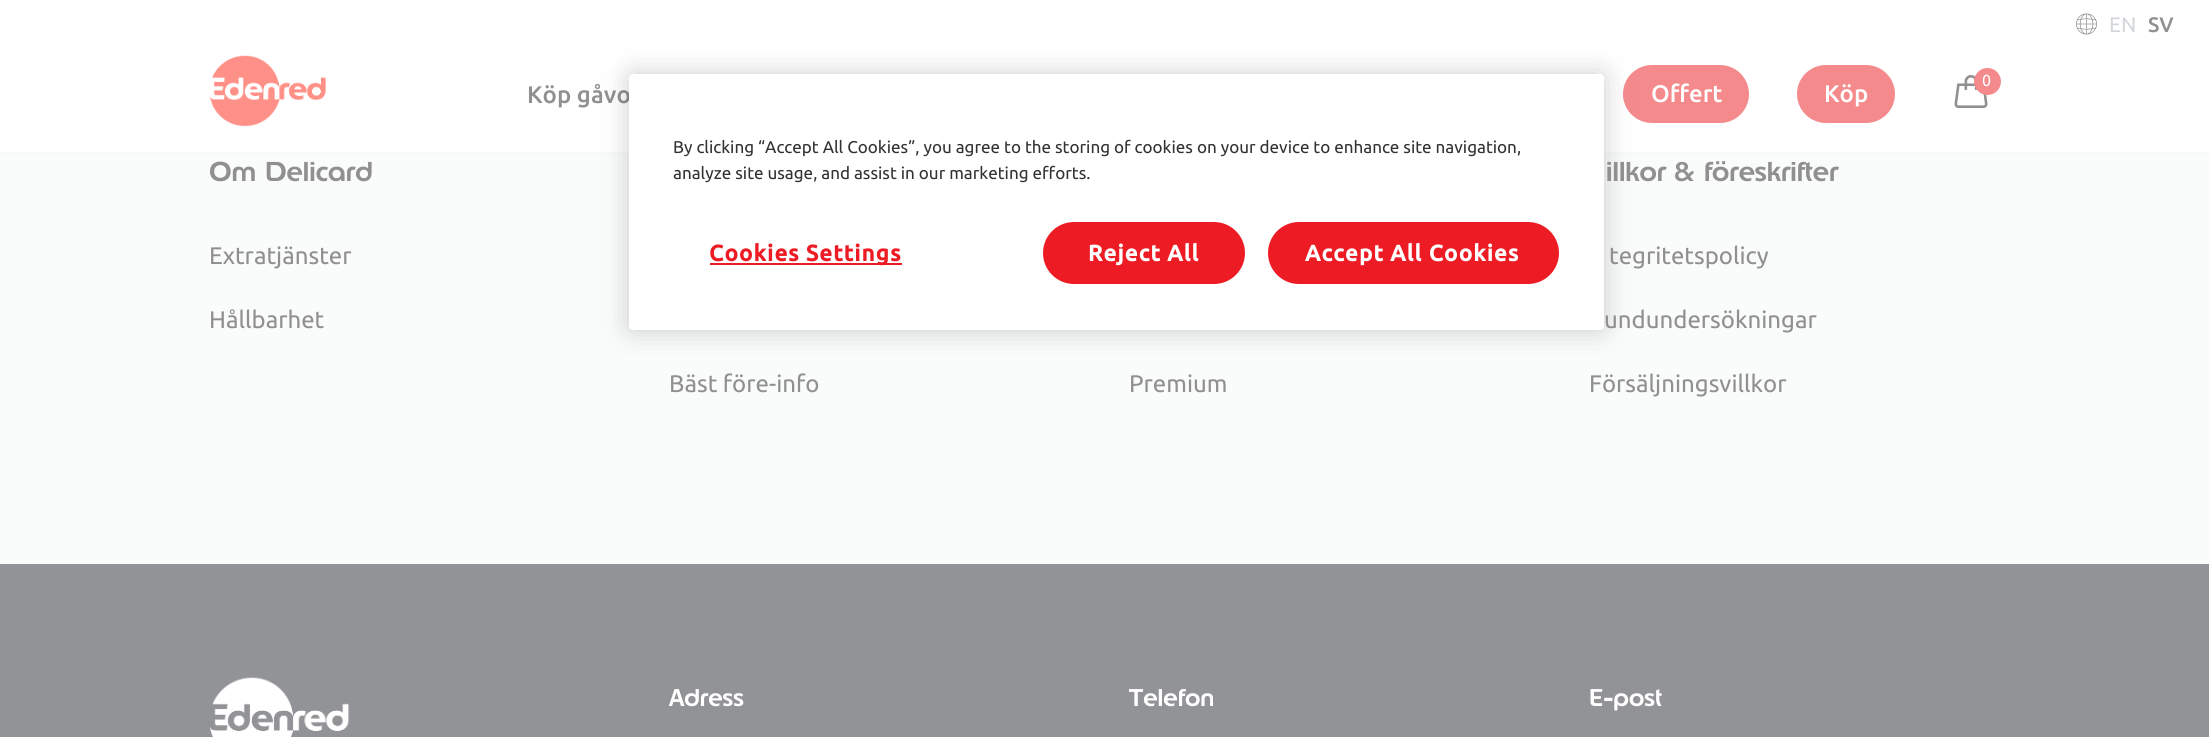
import math
import cairo

surface = cairo.ImageSurface(cairo.FORMAT_RGB24, 2209, 737)
ctx = cairo.Context(surface)
options = cairo.FontOptions()
options.set_hint_metrics(cairo.HINT_METRICS_OFF)
options.set_hint_style(cairo.HINT_STYLE_NONE)
ctx.set_font_options(options)
ctx.set_miter_limit(4)


def spaced_text(x, y, s, letter, word):
    ctx.move_to(x, y)
    for ch in s:
        ctx.show_text(ch)
        ctx.rel_move_to(letter + word * (ch == ' '), 0)


def round_rect(x, y, w, h, r):
    ctx.new_sub_path()
    for i, (u, v) in enumerate([(x + w - r, y + h - r), (x + r, y + h - r), (x + r, y + r), (x + w - r, y + r)]):
        ctx.arc(u, v, r, i * math.pi / 2, (i + 1) * math.pi / 2)
    ctx.close_path()


def shadow(x, y, w, h, r, blur, alpha):
    ctx.push_group_with_content(cairo.CONTENT_ALPHA)
    ctx.set_operator(cairo.OPERATOR_SOURCE)
    for i in range(15, -16, -2):
        e = blur * i / 6
        if min(w, h) + 2 * e > 0:
            ctx.set_source_rgba(0, 0, 0, alpha * math.erfc((i - 1) / 8.5) / 2)
            round_rect(x - e, y - e, w + 2 * e, h + 2 * e, max(0, min(r + e + blur * .6, min(w, h) / 2 + e)))
            ctx.fill()
    ctx.mask(ctx.pop_group())


def picture(path, x, y, w, h):
    ctx.save()
    ctx.set_source_surface(cairo.ImageSurface.create_from_png(path), x, y)
    ctx.rectangle(x, y, w, h)
    ctx.fill()
    ctx.restore()


ctx.set_source_rgb(0.98, 0.984, 0.984)
ctx.paint()
ctx.set_source_rgb(1, 1, 1)
ctx.rectangle(0, 0, 2209, 152)
ctx.fill()
ctx.set_source_rgb(0.973, 0.973, 0.976)
ctx.rectangle(0, 152, 2209, 2)
ctx.fill()
picture("img1.png", 2076, 13, 21, 22)
ctx.select_font_face("Ubuntu")
ctx.set_font_size(21)
ctx.set_source_rgb(0.827, 0.839, 0.859)
ctx.move_to(2109, 32)
ctx.show_text("EN")
ctx.select_font_face("Ubuntu Medium")
ctx.set_source_rgb(0.565, 0.565, 0.565)
ctx.move_to(2148, 32)
ctx.show_text("SV")
picture("img2.png", 209, 55, 117, 72)
ctx.set_font_size(24)
ctx.move_to(527, 103)
ctx.show_text("Köp gåvo")
picture("img3.png", 1954, 75, 34, 33)
ctx.set_source_rgb(0.957, 0.541, 0.549)
ctx.arc(1987.5, 81.5, 13.5, 0, 2 * math.pi)
ctx.fill()
ctx.select_font_face("Ubuntu")
ctx.set_font_size(16)
ctx.set_source_rgb(1, 1, 1)
ctx.move_to(1982, 86)
ctx.show_text("0")
ctx.set_source_rgb(0.957, 0.541, 0.549)
round_rect(1623, 65, 126, 58, 29)
ctx.fill()
ctx.select_font_face("Ubuntu Medium")
ctx.set_font_size(24)
ctx.set_source_rgb(1, 1, 1)
ctx.move_to(1651, 102)
ctx.show_text("Offert")
ctx.set_source_rgb(0.957, 0.541, 0.549)
round_rect(1797, 65, 98, 58, 29)
ctx.fill()
ctx.set_source_rgb(1, 1, 1)
ctx.move_to(1824, 102)
ctx.show_text("Köp")
ctx.set_source_rgb(0, 0, 0)
shadow(629, 74, 975, 256, 4, 13.5, 0.2)
ctx.set_source_rgb(1, 1, 1)
round_rect(629, 74, 975, 256, 4)
ctx.fill()
ctx.select_font_face("Ubuntu")
ctx.set_font_size(17.05)
ctx.set_source_rgb(0.196, 0.196, 0.196)
ctx.move_to(673, 153)
ctx.show_text("By clicking “Accept All Cookies”, you agree to the storing of cookies on your device to enhance site navigation,")
ctx.move_to(673, 179)
ctx.show_text("analyze site usage, and assist in our marketing efforts.")
ctx.set_source_rgb(0.929, 0.11, 0.141)
ctx.rectangle(710, 263, 192, 2)
ctx.fill()
ctx.select_font_face("Ubuntu", cairo.FONT_SLANT_NORMAL, cairo.FONT_WEIGHT_BOLD)
ctx.set_font_size(22.5)
spaced_text(709, 261, "Cookies Settings", 1.1, 0)
round_rect(1044, 223, 200, 60, 30)
ctx.fill_preserve()
ctx.stroke()
ctx.set_source_rgb(1, 1, 1)
spaced_text(1088, 261, "Reject All", 1.1, 0)
ctx.set_source_rgb(0.929, 0.11, 0.141)
round_rect(1269, 223, 289, 60, 30)
ctx.fill_preserve()
ctx.stroke()
ctx.set_source_rgb(1, 1, 1)
spaced_text(1305, 261, "Accept All Cookies", 1.1, 0)
ctx.select_font_face("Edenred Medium")
ctx.set_font_size(27)
ctx.set_source_rgb(0.565, 0.565, 0.565)
ctx.move_to(209, 181)
ctx.show_text("Om Delicard")
ctx.select_font_face("Ubuntu")
ctx.set_font_size(24)
ctx.move_to(209, 264)
ctx.show_text("Extratjänster")
ctx.move_to(209, 328)
ctx.show_text("Hållbarhet")
ctx.move_to(669, 392)
ctx.show_text("Bäst före-info")
ctx.move_to(1129, 392)
ctx.show_text("Premium")
ctx.select_font_face("Edenred Medium")
ctx.set_font_size(27)
ctx.move_to(1606, 181)
ctx.show_text("illkor & föreskrifter")
ctx.select_font_face("Ubuntu")
ctx.set_font_size(24)
ctx.move_to(1609, 264)
ctx.show_text("tegritetspolicy")
ctx.move_to(1604, 328)
ctx.show_text("undundersökningar")
ctx.move_to(1589, 392)
ctx.show_text("Försäljningsvillkor")
ctx.set_source_rgb(0.573, 0.576, 0.588)
ctx.rectangle(0, 564, 2209, 173)
ctx.fill()
picture("img4.png", 210, 677, 140, 60)
ctx.select_font_face("Edenred Medium")
ctx.set_source_rgb(1, 1, 1)
ctx.move_to(669, 706)
ctx.show_text("Adress")
ctx.move_to(1129, 706)
ctx.show_text("Telefon")
ctx.move_to(1589, 706)
ctx.show_text("E-post")
surface.write_to_png("page.png")
